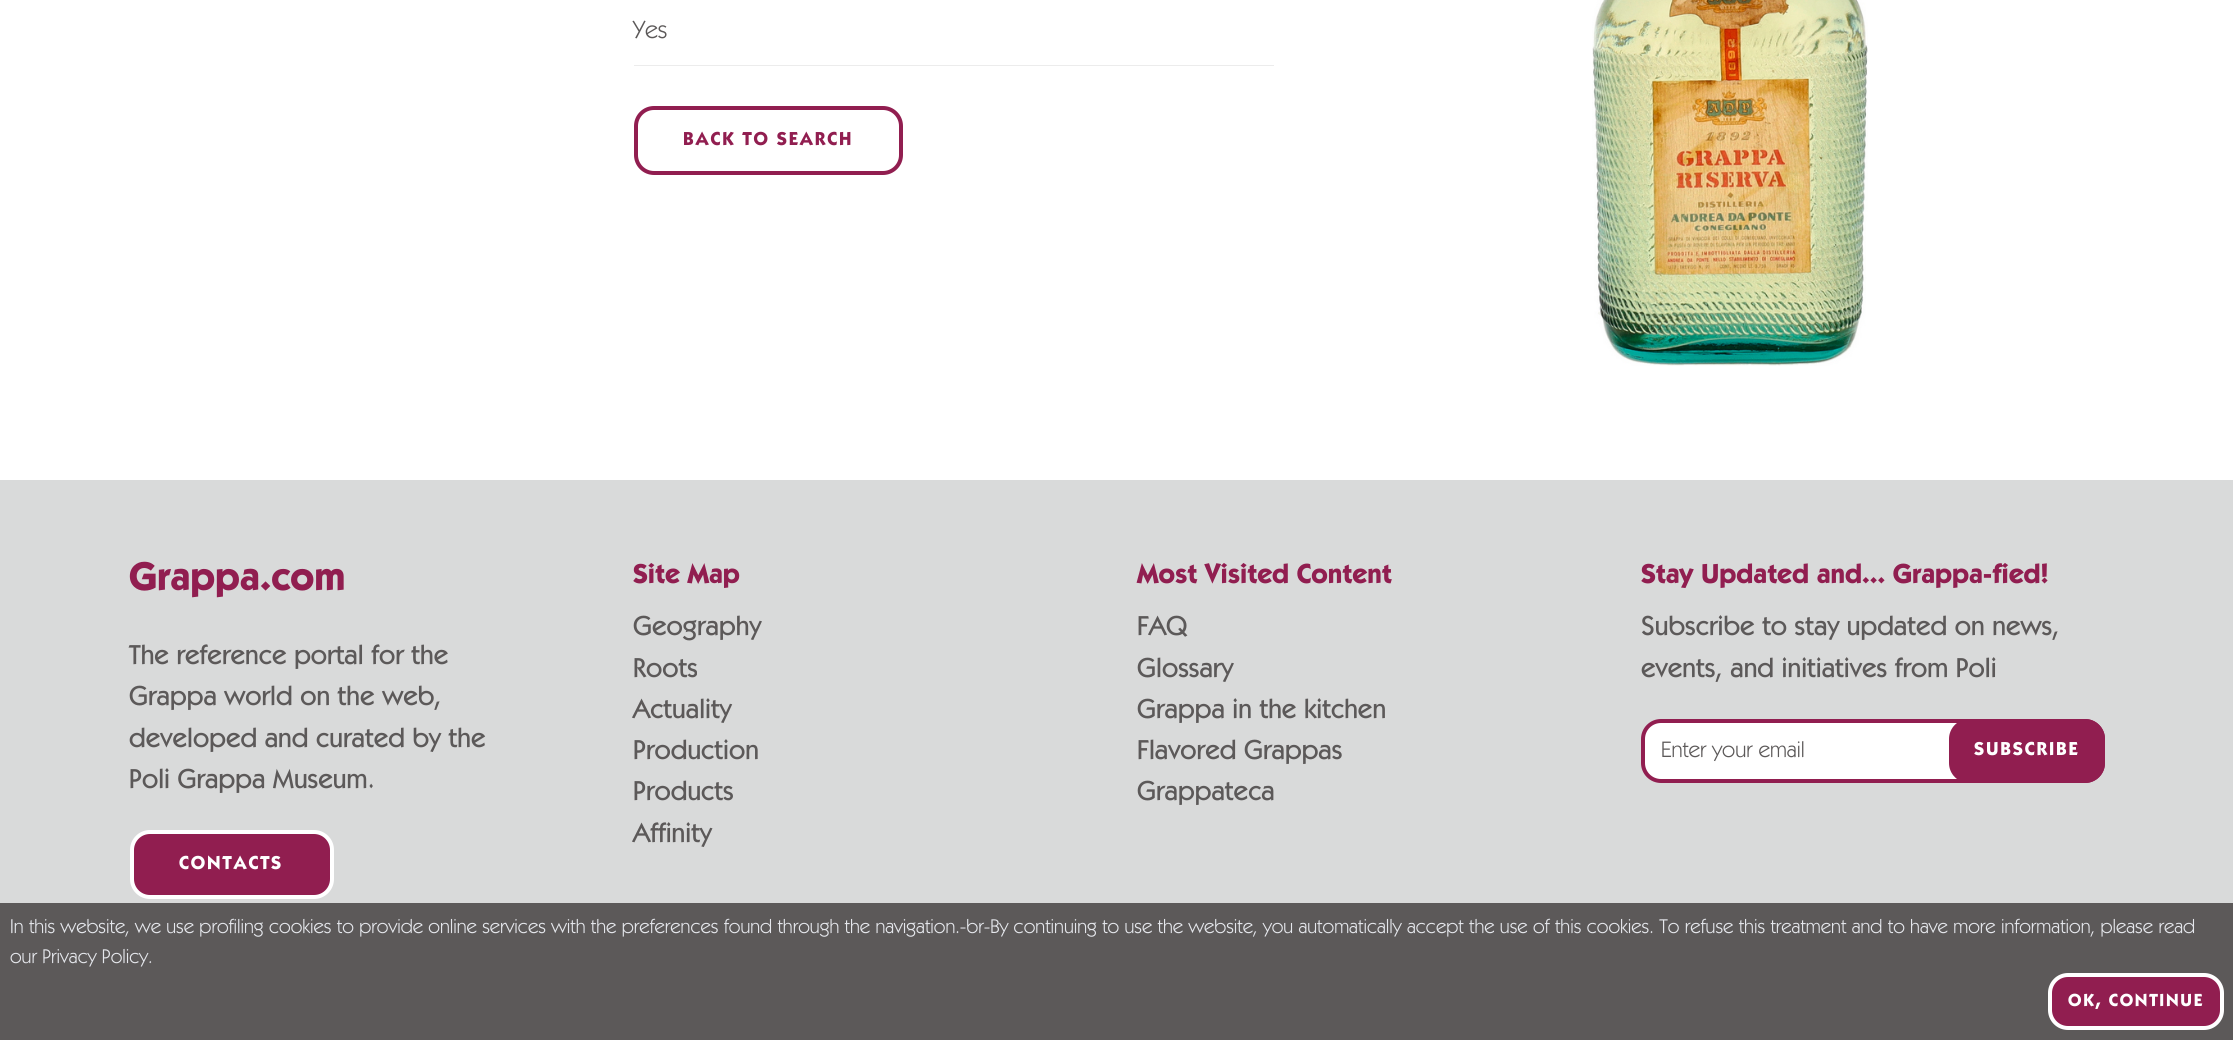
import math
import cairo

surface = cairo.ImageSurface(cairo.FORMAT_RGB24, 2233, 1040)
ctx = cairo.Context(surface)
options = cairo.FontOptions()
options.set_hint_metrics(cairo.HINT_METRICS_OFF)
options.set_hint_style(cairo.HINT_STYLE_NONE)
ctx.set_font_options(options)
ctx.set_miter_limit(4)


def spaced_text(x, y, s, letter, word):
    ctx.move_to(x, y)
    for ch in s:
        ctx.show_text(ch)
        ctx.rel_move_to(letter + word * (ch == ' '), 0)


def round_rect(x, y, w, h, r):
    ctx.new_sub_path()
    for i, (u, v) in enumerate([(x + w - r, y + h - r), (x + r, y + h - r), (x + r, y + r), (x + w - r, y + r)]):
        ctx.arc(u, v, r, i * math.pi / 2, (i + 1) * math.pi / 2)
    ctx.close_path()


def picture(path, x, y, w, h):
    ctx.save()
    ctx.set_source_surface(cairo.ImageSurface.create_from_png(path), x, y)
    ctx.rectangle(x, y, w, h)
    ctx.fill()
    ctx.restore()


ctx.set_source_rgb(1, 1, 1)
ctx.paint()
ctx.set_source_rgb(0.925, 0.925, 0.925)
ctx.rectangle(634, 65, 640, 1)
ctx.fill()
ctx.select_font_face("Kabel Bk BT")
ctx.set_font_size(25)
ctx.set_source_rgb(0.361, 0.349, 0.349)
ctx.move_to(633, 38)
ctx.show_text("Yes")
round_rect(636, 108, 265, 65, 18)
ctx.set_source_rgb(0.569, 0.118, 0.314)
ctx.set_line_width(4)
ctx.stroke()
ctx.select_font_face("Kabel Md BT", cairo.FONT_SLANT_NORMAL, cairo.FONT_WEIGHT_BOLD)
ctx.set_font_size(18.75)
spaced_text(683, 145, "BACK TO SEARCH", 1.9, 0)
picture("img1.png", 1592, 0, 276, 366)
ctx.set_source_rgb(0.851, 0.855, 0.855)
ctx.rectangle(0, 480, 2233, 423)
ctx.fill()
ctx.set_font_size(40)
ctx.set_source_rgb(0.569, 0.118, 0.314)
ctx.move_to(129, 590)
ctx.show_text("Grappa.com")
ctx.select_font_face("Kabel Md BT Medium")
ctx.set_font_size(27.5)
ctx.set_source_rgb(0.361, 0.349, 0.349)
ctx.move_to(129, 664)
ctx.show_text("The reference portal for the")
ctx.move_to(129, 705)
ctx.show_text("Grappa world on the web,")
ctx.move_to(129, 747)
ctx.show_text("developed and curated by the")
ctx.move_to(129, 788)
ctx.show_text("Poli Grappa Museum.")
ctx.set_source_rgb(0.569, 0.118, 0.314)
round_rect(132, 832, 200, 65, 18)
ctx.fill_preserve()
ctx.set_source_rgb(1, 1, 1)
ctx.stroke()
ctx.select_font_face("Kabel Md BT", cairo.FONT_SLANT_NORMAL, cairo.FONT_WEIGHT_BOLD)
ctx.set_font_size(18.75)
spaced_text(179, 869, "CONTACTS", 1.9, 0)
ctx.set_font_size(27.5)
ctx.set_source_rgb(0.569, 0.118, 0.314)
ctx.move_to(633, 583)
ctx.show_text("Site Map")
ctx.select_font_face("Kabel Md BT Medium")
ctx.set_source_rgb(0.361, 0.349, 0.349)
ctx.move_to(633, 635)
ctx.show_text("Geography")
ctx.move_to(633, 677)
ctx.show_text("Roots")
ctx.move_to(633, 718)
ctx.show_text("Actuality")
ctx.move_to(633, 759)
ctx.show_text("Production")
ctx.move_to(633, 800)
ctx.show_text("Products")
ctx.move_to(633, 842)
ctx.show_text("Affinity")
ctx.select_font_face("Kabel Md BT", cairo.FONT_SLANT_NORMAL, cairo.FONT_WEIGHT_BOLD)
ctx.set_source_rgb(0.569, 0.118, 0.314)
ctx.move_to(1137, 583)
ctx.show_text("Most Visited Content")
ctx.select_font_face("Kabel Md BT Medium")
ctx.set_source_rgb(0.361, 0.349, 0.349)
ctx.move_to(1137, 635)
ctx.show_text("FAQ")
ctx.move_to(1137, 677)
ctx.show_text("Glossary")
ctx.move_to(1137, 718)
ctx.show_text("Grappa in the kitchen")
ctx.move_to(1137, 759)
ctx.show_text("Flavored Grappas")
ctx.move_to(1137, 800)
ctx.show_text("Grappateca")
ctx.select_font_face("Kabel Md BT", cairo.FONT_SLANT_NORMAL, cairo.FONT_WEIGHT_BOLD)
ctx.set_source_rgb(0.569, 0.118, 0.314)
ctx.move_to(1641, 583)
ctx.show_text("Stay Updated and... Grappa-fied!")
ctx.select_font_face("Kabel Md BT Medium")
ctx.set_source_rgb(0.361, 0.349, 0.349)
ctx.move_to(1641, 635)
ctx.show_text("Subscribe to stay updated on news,")
ctx.move_to(1641, 677)
ctx.show_text("events, and initiatives from Poli")
ctx.set_source_rgb(1, 1, 1)
round_rect(1643, 721, 460, 60, 18)
ctx.fill_preserve()
ctx.set_source_rgb(0.569, 0.118, 0.314)
ctx.stroke()
ctx.select_font_face("Kabel Bk BT")
ctx.set_font_size(22.5)
ctx.set_source_rgb(0.361, 0.349, 0.349)
ctx.move_to(1661, 757)
ctx.show_text("Enter your email")
ctx.set_source_rgb(0.569, 0.118, 0.314)
round_rect(1949, 719, 156, 64, 20)
ctx.fill()
ctx.select_font_face("Kabel Md BT", cairo.FONT_SLANT_NORMAL, cairo.FONT_WEIGHT_BOLD)
ctx.set_font_size(18.75)
ctx.set_source_rgb(1, 1, 1)
spaced_text(1974, 755, "SUBSCRIBE", 1.9, 0)
ctx.set_source_rgb(0.361, 0.349, 0.349)
ctx.rectangle(0, 903, 2233, 137)
ctx.fill()
ctx.select_font_face("Kabel Bk BT")
ctx.set_font_size(20)
ctx.set_source_rgb(0.898, 0.906, 0.922)
ctx.move_to(10, 933)
ctx.show_text("In this website, we use profiling cookies to provide online services with the preferences found through the navigation.-br-By continuing to use the website, you automatically accept the use of this cookies. To refuse this treatment and to have more information, please read")
ctx.move_to(10, 963)
ctx.show_text("our Privacy Policy.")
ctx.set_source_rgb(0.569, 0.118, 0.314)
round_rect(2050, 975, 172, 53, 18)
ctx.fill_preserve()
ctx.set_source_rgb(1, 1, 1)
ctx.stroke()
ctx.select_font_face("Kabel Md BT", cairo.FONT_SLANT_NORMAL, cairo.FONT_WEIGHT_BOLD)
ctx.set_font_size(17.5)
spaced_text(2068, 1006, "OK, CONTINUE", 1.75, 0)
surface.write_to_png("page.png")
